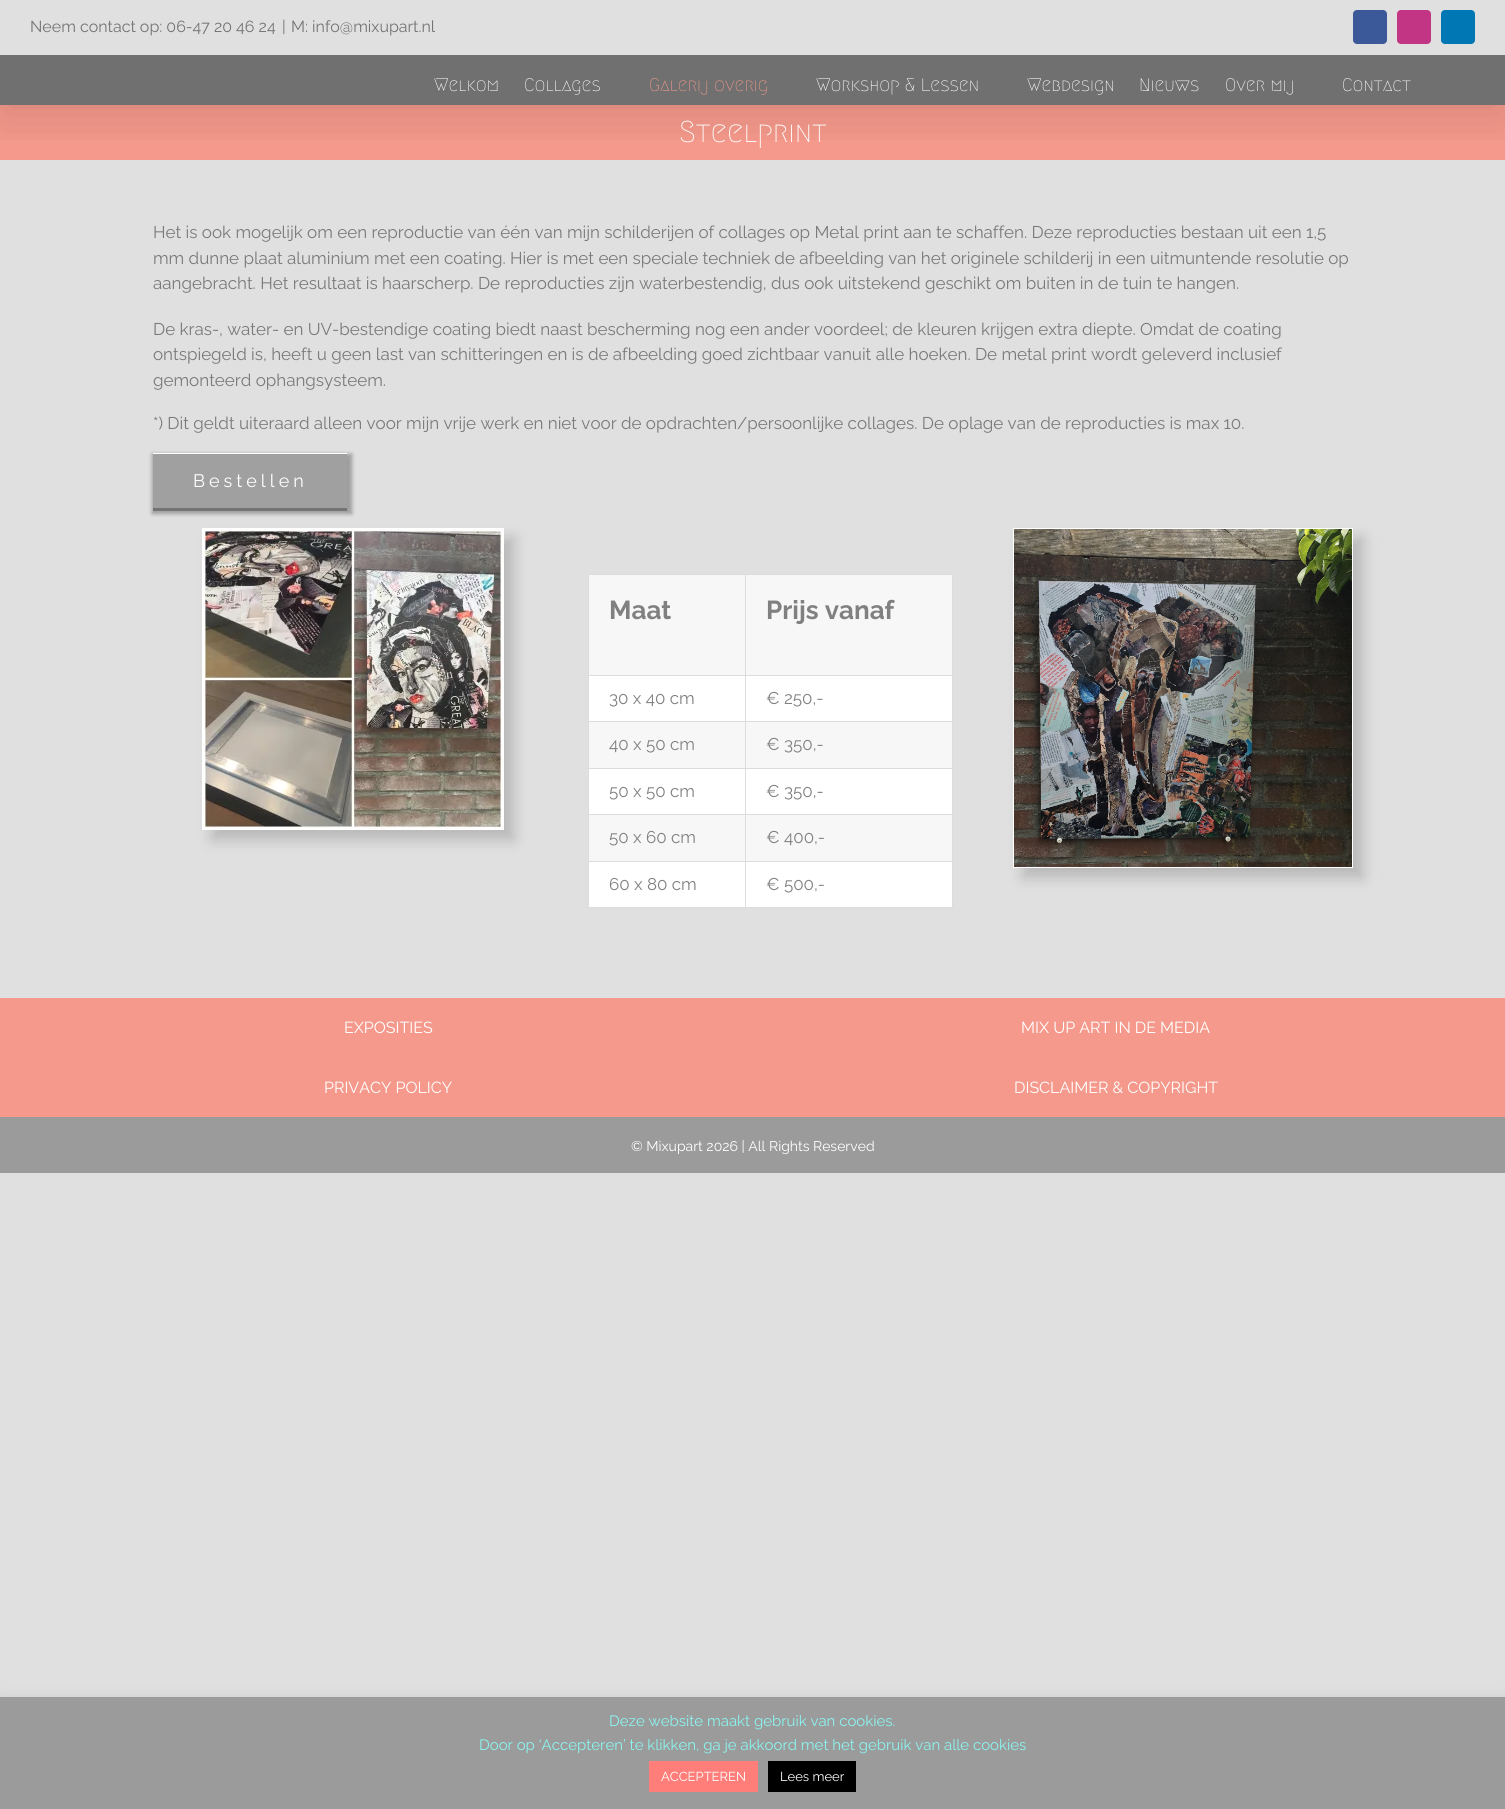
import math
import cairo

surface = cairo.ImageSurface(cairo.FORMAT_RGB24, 1505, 1809)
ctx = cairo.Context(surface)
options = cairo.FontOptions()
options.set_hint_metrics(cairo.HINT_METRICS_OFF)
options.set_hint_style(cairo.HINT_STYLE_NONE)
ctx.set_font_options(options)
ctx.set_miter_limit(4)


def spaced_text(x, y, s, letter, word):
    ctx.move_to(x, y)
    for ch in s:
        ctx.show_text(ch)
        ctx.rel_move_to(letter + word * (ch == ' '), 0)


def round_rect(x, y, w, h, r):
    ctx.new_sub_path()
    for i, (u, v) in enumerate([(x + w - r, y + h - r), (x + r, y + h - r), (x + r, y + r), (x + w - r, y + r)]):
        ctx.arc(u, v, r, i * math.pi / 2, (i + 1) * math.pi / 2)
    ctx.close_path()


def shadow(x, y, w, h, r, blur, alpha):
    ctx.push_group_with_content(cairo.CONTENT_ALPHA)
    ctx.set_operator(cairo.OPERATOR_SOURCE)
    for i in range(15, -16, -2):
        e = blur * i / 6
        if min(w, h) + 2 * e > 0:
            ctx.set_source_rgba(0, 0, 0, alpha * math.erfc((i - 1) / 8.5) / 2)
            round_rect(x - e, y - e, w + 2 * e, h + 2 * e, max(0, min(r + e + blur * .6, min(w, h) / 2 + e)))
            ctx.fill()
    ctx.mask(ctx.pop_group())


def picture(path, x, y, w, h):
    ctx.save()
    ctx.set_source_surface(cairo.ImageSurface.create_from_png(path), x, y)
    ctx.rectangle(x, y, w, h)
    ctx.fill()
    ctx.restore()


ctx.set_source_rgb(0.878, 0.878, 0.878)
ctx.paint()
ctx.set_source_rgb(0.957, 0.6, 0.545)
ctx.rectangle(0, 105, 1505, 55)
ctx.fill()
ctx.save()
ctx.rectangle(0, 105, 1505, 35)
ctx.clip()
ctx.set_source_rgb(0, 0, 0)
shadow(2, 12, 1501, 101, 0, 25, 0.14)
ctx.restore()
ctx.select_font_face("Raleway")
ctx.set_font_size(16)
ctx.set_source_rgb(0.455, 0.455, 0.455)
ctx.move_to(30, 32)
ctx.show_text("Neem contact op: 06-47 20 46 24")
ctx.move_to(282, 32)
ctx.show_text("|")
ctx.move_to(291, 32)
ctx.show_text("M: info@mixupart.nl")
ctx.set_source_rgb(0.231, 0.349, 0.596)
round_rect(1353.5, 10.5, 33, 33, 3.5)
ctx.fill_preserve()
ctx.set_line_width(1)
ctx.stroke()
ctx.set_source_rgb(0.757, 0.208, 0.518)
round_rect(1397.5, 10.5, 33, 33, 3.5)
ctx.fill_preserve()
ctx.stroke()
ctx.set_source_rgb(0, 0.467, 0.71)
round_rect(1441.5, 10.5, 33, 33, 3.5)
ctx.fill_preserve()
ctx.stroke()
ctx.set_source_rgb(0.439, 0.439, 0.439)
ctx.rectangle(0, 55, 1505, 50)
ctx.fill()
ctx.select_font_face("Megrim Medium")
ctx.set_font_size(18)
ctx.set_source_rgb(1, 1, 1)
ctx.move_to(434, 91)
ctx.show_text("Welkom")
ctx.move_to(524, 91)
ctx.show_text("Collages")
ctx.set_source_rgb(0.957, 0.6, 0.545)
ctx.move_to(649, 91)
ctx.show_text("Galerij overig")
ctx.set_source_rgb(1, 1, 1)
ctx.move_to(816, 91)
ctx.show_text("Workshop & Lessen")
ctx.move_to(1027, 91)
ctx.show_text("Webdesign")
ctx.move_to(1139, 91)
ctx.show_text("Nieuws")
ctx.move_to(1225, 91)
ctx.show_text("Over mij")
ctx.move_to(1342, 91)
ctx.show_text("Contact")
ctx.set_font_size(30)
ctx.move_to(679, 142)
ctx.show_text("Steelprint")
ctx.select_font_face("Raleway")
ctx.set_font_size(17)
ctx.set_source_rgb(0.478, 0.478, 0.478)
ctx.move_to(153, 238)
ctx.show_text("Het is ook mogelijk om een reproductie van één van mijn schilderijen of collages op Metal print aan te schaffen. Deze reproducties bestaan uit een 1,5")
ctx.move_to(153, 264)
ctx.show_text("mm dunne plaat aluminium met een coating. Hier is met een speciale techniek de afbeelding van het originele schilderij in een uitmuntende resolutie op")
ctx.move_to(153, 289)
ctx.show_text("aangebracht. Het resultaat is haarscherp. De reproducties zijn waterbestendig, dus ook uitstekend geschikt om buiten in de tuin te hangen.")
ctx.move_to(153, 335)
ctx.show_text("De kras-, water- en UV-bestendige coating biedt naast bescherming nog een ander voordeel; de kleuren krijgen extra diepte. Omdat de coating")
ctx.move_to(153, 360)
ctx.show_text("ontspiegeld is, heeft u geen last van schitteringen en is de afbeelding goed zichtbaar vanuit alle hoeken. De metal print wordt geleverd inclusief")
ctx.move_to(153, 386)
ctx.show_text("gemonteerd ophangsysteem.")
ctx.move_to(153, 429)
ctx.show_text("*) Dit geldt uiteraard alleen voor mijn vrije werk en niet voor de opdrachten/persoonlijke collages. De oplage van de reproducties is max 10.")
ctx.set_source_rgb(0, 0, 0)
shadow(152, 454, 200, 60, 0, 2, 0.3)
ctx.set_source_rgb(0.455, 0.455, 0.455)
ctx.rectangle(153, 508, 194, 3)
ctx.fill()
ctx.set_source_rgb(0.627, 0.627, 0.627)
ctx.rectangle(153, 454, 194, 54)
ctx.fill()
ctx.set_source_rgb(1, 1, 1)
ctx.rectangle(153, 453, 194, 1)
ctx.fill()
ctx.set_font_size(18)
spaced_text(193, 487, "Bestellen", 4, 0)
ctx.set_source_rgb(0.357, 0.357, 0.357)
shadow(212, 538, 302, 302, 0, 7, 0.3)
ctx.rectangle(202.5, 528.5, 301, 301)
ctx.set_source_rgb(1, 1, 1)
ctx.stroke()
picture("img1.png", 203, 529, 300, 300)
ctx.rectangle(589, 676, 363, 231)
ctx.fill()
ctx.set_source_rgb(0.863, 0.863, 0.863)
ctx.rectangle(588, 574, 365, 1)
ctx.fill()
ctx.rectangle(952, 574, 1, 334)
ctx.fill()
ctx.rectangle(588, 907, 365, 1)
ctx.fill()
ctx.rectangle(588, 574, 1, 334)
ctx.fill()
ctx.set_source_rgb(0.965, 0.965, 0.965)
ctx.rectangle(589, 575, 156, 100)
ctx.fill()
ctx.select_font_face("Raleway", cairo.FONT_SLANT_NORMAL, cairo.FONT_WEIGHT_BOLD)
ctx.set_font_size(26)
ctx.set_source_rgb(0.502, 0.502, 0.502)
ctx.move_to(609, 619)
ctx.show_text("Maat")
ctx.set_source_rgb(0.965, 0.965, 0.965)
ctx.rectangle(746, 575, 206, 100)
ctx.fill()
ctx.set_source_rgb(0.863, 0.863, 0.863)
ctx.rectangle(745, 675, 208, 1)
ctx.fill()
ctx.rectangle(745, 721, 208, 1)
ctx.fill()
ctx.set_source_rgb(0.965, 0.965, 0.965)
ctx.rectangle(589, 722, 363, 46)
ctx.fill()
ctx.set_source_rgb(0.863, 0.863, 0.863)
ctx.rectangle(745, 768, 208, 1)
ctx.fill()
ctx.rectangle(745, 814, 208, 1)
ctx.fill()
ctx.set_source_rgb(0.965, 0.965, 0.965)
ctx.rectangle(589, 815, 363, 46)
ctx.fill()
ctx.set_source_rgb(0.863, 0.863, 0.863)
ctx.rectangle(745, 861, 208, 1)
ctx.fill()
ctx.rectangle(745, 861, 1, 47)
ctx.fill()
ctx.rectangle(588, 861, 158, 1)
ctx.fill()
ctx.rectangle(745, 814, 1, 48)
ctx.fill()
ctx.rectangle(588, 814, 158, 1)
ctx.fill()
ctx.rectangle(745, 768, 1, 47)
ctx.fill()
ctx.rectangle(588, 768, 158, 1)
ctx.fill()
ctx.rectangle(745, 721, 1, 48)
ctx.fill()
ctx.rectangle(588, 721, 158, 1)
ctx.fill()
ctx.rectangle(745, 675, 1, 47)
ctx.fill()
ctx.rectangle(588, 675, 158, 1)
ctx.fill()
ctx.rectangle(745, 574, 1, 102)
ctx.fill()
ctx.set_source_rgb(0.502, 0.502, 0.502)
ctx.move_to(766, 619)
ctx.show_text("Prijs vanaf")
ctx.select_font_face("Raleway")
ctx.set_font_size(17)
ctx.move_to(609, 704)
ctx.show_text("30 x 40 cm")
ctx.move_to(766, 704)
ctx.show_text("€ 250,-")
ctx.move_to(609, 750)
ctx.show_text("40 x 50 cm")
ctx.move_to(766, 750)
ctx.show_text("€ 350,-")
ctx.move_to(609, 797)
ctx.show_text("50 x 50 cm")
ctx.move_to(766, 797)
ctx.show_text("€ 350,-")
ctx.move_to(609, 843)
ctx.show_text("50 x 60 cm")
ctx.move_to(766, 843)
ctx.show_text("€ 400,-")
ctx.move_to(609, 890)
ctx.show_text("60 x 80 cm")
ctx.move_to(766, 890)
ctx.show_text("€ 500,-")
ctx.set_source_rgb(0.357, 0.357, 0.357)
shadow(1023, 538, 340, 340, 0, 7, 0.3)
ctx.rectangle(1013.5, 528.5, 339, 339)
ctx.set_source_rgb(1, 1, 1)
ctx.stroke()
picture("img2.png", 1014, 529, 338, 338)
ctx.set_source_rgb(0.957, 0.6, 0.545)
ctx.rectangle(0, 998, 1505, 119)
ctx.fill()
ctx.set_font_size(16)
ctx.set_source_rgb(1, 1, 1)
ctx.move_to(344, 1033)
ctx.show_text("EXPOSITIES")
ctx.move_to(1021, 1033)
ctx.show_text("MIX UP ART IN DE MEDIA")
ctx.move_to(324, 1093)
ctx.show_text("PRIVACY POLICY")
ctx.move_to(1014, 1093)
ctx.show_text("DISCLAIMER & COPYRIGHT")
ctx.set_source_rgb(0.608, 0.608, 0.608)
ctx.rectangle(0, 1117, 1505, 56)
ctx.fill()
ctx.set_font_size(14)
ctx.set_source_rgb(1, 1, 1)
ctx.move_to(631, 1151)
ctx.show_text("© Mixupart 2026 | All Rights Reserved")
ctx.set_source_rgb(0.675, 0.671, 0.671)
shadow(0, 1696, 1505, 112, 0, 5, 0.3)
ctx.set_source_rgb(0.608, 0.608, 0.608)
ctx.rectangle(0, 1697, 1505, 112)
ctx.fill()
ctx.set_font_size(15)
ctx.set_source_rgb(0.545, 0.957, 0.937)
ctx.move_to(609, 1726)
ctx.show_text("Deze website maakt gebruik van cookies.")
ctx.move_to(479, 1750)
ctx.show_text("Door op ‘Accepteren’ te klikken, ga je akkoord met het gebruik van alle cookies")
ctx.set_source_rgb(1, 0.494, 0.475)
ctx.rectangle(649, 1761, 109, 31)
ctx.fill()
ctx.set_font_size(13)
ctx.set_source_rgb(1, 1, 1)
ctx.move_to(661, 1781)
ctx.show_text("ACCEPTEREN")
ctx.set_source_rgb(0, 0, 0)
ctx.rectangle(768, 1761, 88, 31)
ctx.fill()
ctx.set_source_rgb(1, 1, 1)
ctx.move_to(780, 1781)
ctx.show_text("Lees meer")
surface.write_to_png("page.png")
